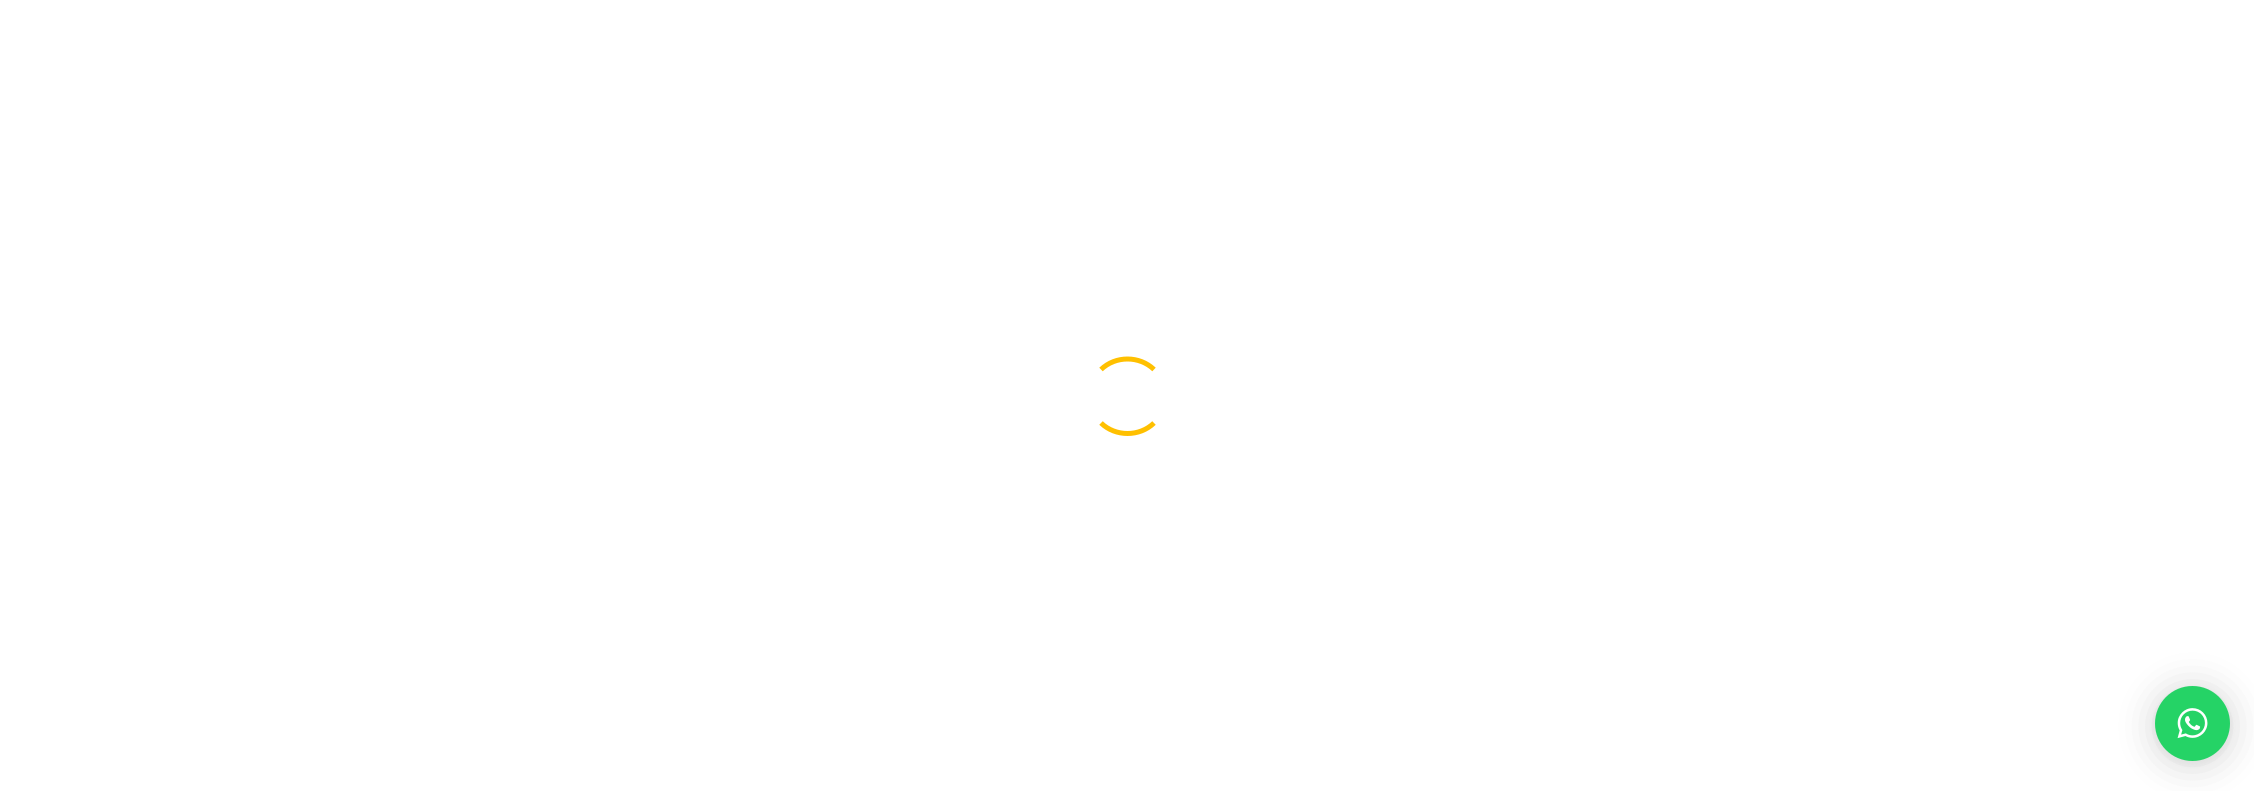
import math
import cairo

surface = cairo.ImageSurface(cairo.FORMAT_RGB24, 2254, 791)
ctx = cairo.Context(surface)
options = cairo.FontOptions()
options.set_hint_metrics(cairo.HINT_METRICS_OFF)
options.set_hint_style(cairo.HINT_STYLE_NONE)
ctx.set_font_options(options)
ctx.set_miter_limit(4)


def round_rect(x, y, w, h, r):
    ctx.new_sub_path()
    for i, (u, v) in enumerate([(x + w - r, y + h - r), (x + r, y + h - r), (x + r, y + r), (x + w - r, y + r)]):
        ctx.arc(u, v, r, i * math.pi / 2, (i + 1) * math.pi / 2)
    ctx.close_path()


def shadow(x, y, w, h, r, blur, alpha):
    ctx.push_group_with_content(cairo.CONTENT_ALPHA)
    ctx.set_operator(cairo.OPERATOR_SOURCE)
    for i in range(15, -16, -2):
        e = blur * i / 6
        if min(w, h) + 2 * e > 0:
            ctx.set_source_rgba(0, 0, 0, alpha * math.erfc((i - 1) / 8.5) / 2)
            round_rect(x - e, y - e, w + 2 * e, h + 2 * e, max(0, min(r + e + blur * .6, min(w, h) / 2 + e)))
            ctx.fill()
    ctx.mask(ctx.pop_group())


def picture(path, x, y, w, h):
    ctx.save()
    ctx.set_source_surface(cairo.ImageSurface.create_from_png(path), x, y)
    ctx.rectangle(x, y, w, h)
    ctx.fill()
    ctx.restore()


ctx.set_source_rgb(1, 1, 1)
ctx.paint()
ctx.new_path()
ctx.move_to(1101, 369.5)
ctx.curve_to(1115.5, 355.5, 1139.5, 355.5, 1154, 369.5)
ctx.set_source_rgb(1, 0.753, 0)
ctx.set_line_width(5)
ctx.stroke()
ctx.new_path()
ctx.move_to(1154, 423)
ctx.curve_to(1139.5, 437, 1115.5, 437, 1101, 423)
ctx.stroke()
ctx.set_source_rgb(0, 0, 0)
shadow(2155, 689, 75, 75, 37.5, 20, 0.16)
shadow(2155, 688, 75, 75, 37.5, 4, 0.06)
ctx.set_source_rgb(0.145, 0.827, 0.4)
ctx.arc(2192.5, 723.5, 37.5, 0, 2 * math.pi)
ctx.fill()
picture("img1.png", 2177, 708, 31, 31)
surface.write_to_png("page.png")
